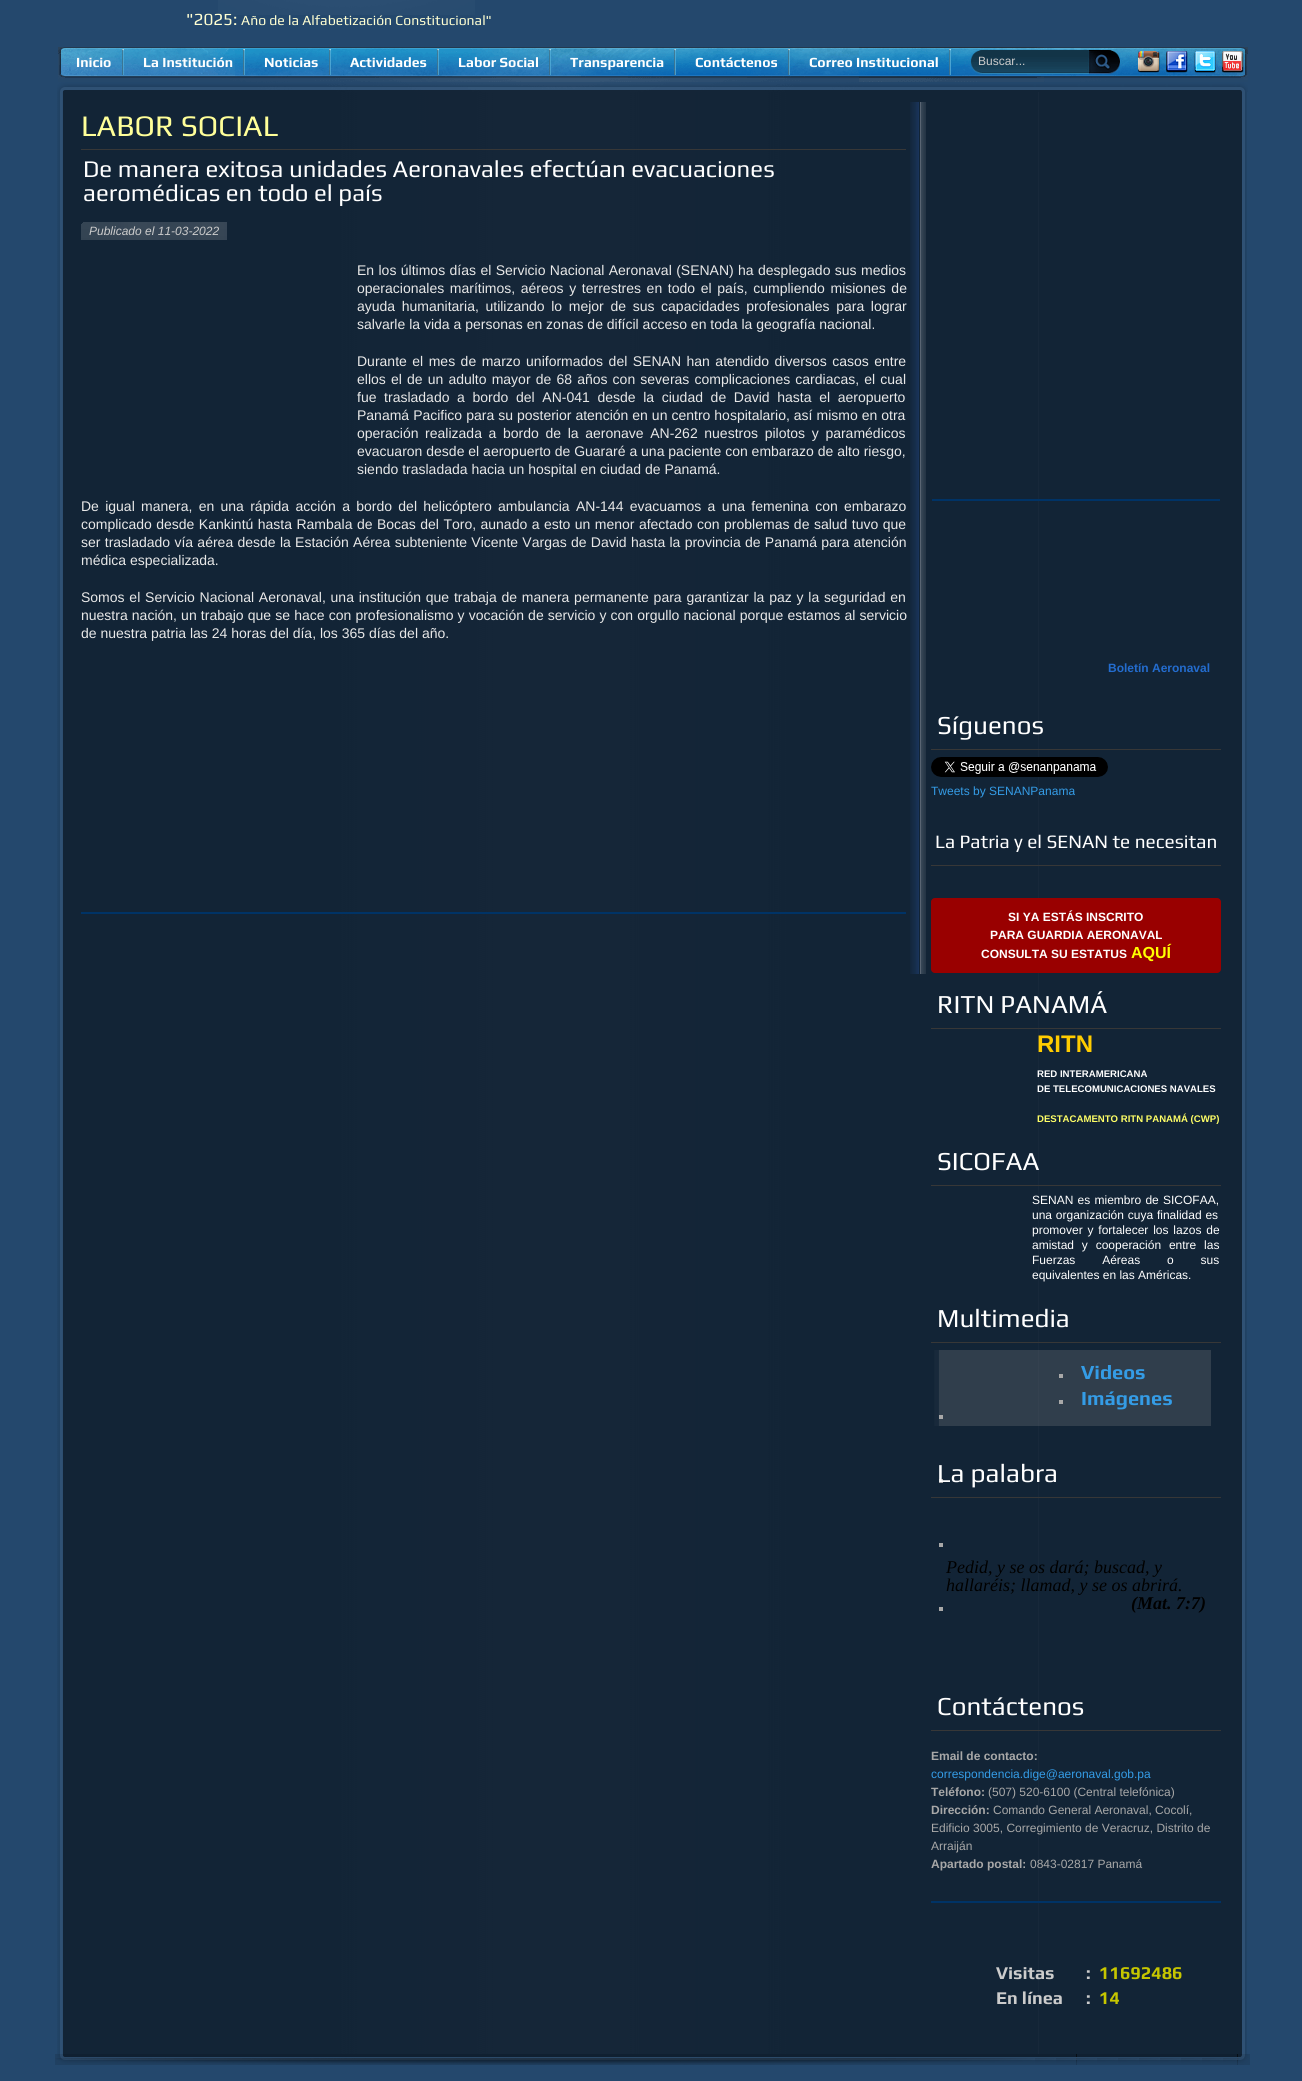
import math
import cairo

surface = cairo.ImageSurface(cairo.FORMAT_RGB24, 1302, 2081)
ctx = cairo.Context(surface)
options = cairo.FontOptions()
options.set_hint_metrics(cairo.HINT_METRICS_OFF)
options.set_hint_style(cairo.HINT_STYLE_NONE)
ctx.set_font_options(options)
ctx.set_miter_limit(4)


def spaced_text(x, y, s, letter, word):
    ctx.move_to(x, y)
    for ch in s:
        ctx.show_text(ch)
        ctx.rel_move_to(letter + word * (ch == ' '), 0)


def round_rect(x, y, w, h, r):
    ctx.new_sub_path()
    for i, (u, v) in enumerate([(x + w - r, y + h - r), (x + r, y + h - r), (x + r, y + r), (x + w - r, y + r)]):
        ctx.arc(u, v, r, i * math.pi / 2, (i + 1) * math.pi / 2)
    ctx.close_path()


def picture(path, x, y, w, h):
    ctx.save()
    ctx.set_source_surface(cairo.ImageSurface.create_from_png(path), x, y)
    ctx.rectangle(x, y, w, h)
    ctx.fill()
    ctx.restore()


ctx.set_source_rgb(0.141, 0.282, 0.427)
ctx.paint()
picture("img1.png", 218, 0, 257, 15)
ctx.select_font_face("Play")
ctx.set_font_size(17)
ctx.set_source_rgb(1, 1, 0.824)
ctx.move_to(186, 25)
ctx.show_text("\"2025:")
ctx.set_font_size(14)
ctx.move_to(241, 25)
ctx.show_text("Año de la Alfabetización Constitucional\"")
picture("img3.png", 58, 47, 1190, 35)
picture("img2.png", 970, 50, 150, 24)
ctx.select_font_face("Liberation Sans")
ctx.set_font_size(12)
ctx.set_source_rgb(0.8, 0.8, 0.8)
ctx.move_to(978, 65)
ctx.show_text("Buscar...")
picture("img4.png", 122, 49, 2, 26)
ctx.select_font_face("Play", cairo.FONT_SLANT_NORMAL, cairo.FONT_WEIGHT_BOLD)
ctx.set_font_size(14)
ctx.set_source_rgb(1, 1, 1)
ctx.move_to(76, 67)
ctx.show_text("Inicio")
picture("img4.png", 243, 49, 2, 26)
ctx.move_to(143, 67)
ctx.show_text("La Institución")
picture("img4.png", 329, 49, 2, 26)
ctx.move_to(264, 67)
ctx.show_text("Noticias")
picture("img4.png", 437, 49, 2, 26)
ctx.move_to(350, 67)
ctx.show_text("Actividades")
picture("img4.png", 549, 49, 2, 26)
ctx.move_to(458, 67)
ctx.show_text("Labor Social")
picture("img4.png", 674, 49, 2, 26)
ctx.move_to(570, 67)
ctx.show_text("Transparencia")
picture("img4.png", 788, 49, 2, 26)
ctx.move_to(695, 67)
ctx.show_text("Contáctenos")
picture("img4.png", 949, 49, 2, 26)
ctx.move_to(809, 67)
ctx.show_text("Correo Institucional")
picture("img5.png", 1138, 51, 22, 22)
picture("img6.png", 1166, 51, 22, 22)
picture("img7.png", 1194, 51, 22, 22)
picture("img8.png", 1222, 51, 22, 22)
picture("img9.png", 57, 82, 1191, 10)
picture("img10.png", 57, 92, 1190, 1962)
picture("img11.png", 910, 102, 16, 872)
ctx.set_source_rgb(0.216, 0.216, 0.216)
ctx.rectangle(81, 149, 825, 1)
ctx.fill()
ctx.select_font_face("Play")
ctx.set_font_size(30)
ctx.set_source_rgb(1, 1, 0.6)
ctx.move_to(81, 136)
ctx.show_text("LABOR SOCIAL")
ctx.set_font_size(24)
ctx.set_source_rgb(1, 1, 1)
ctx.move_to(83, 177)
ctx.show_text("De manera exitosa unidades Aeronavales efectúan evacuaciones")
ctx.move_to(83, 201)
ctx.show_text("aeromédicas en todo el país")
picture("img12.png", 81, 222, 146, 18)
ctx.select_font_face("Liberation Sans", cairo.FONT_SLANT_ITALIC)
ctx.set_font_size(12)
ctx.set_source_rgb(0.8, 0.8, 0.8)
ctx.move_to(89, 235)
ctx.show_text("Publicado el 11-03-2022")
ctx.select_font_face("Liberation Sans")
ctx.set_font_size(14)
ctx.set_source_rgb(0.91, 0.91, 0.91)
spaced_text(357, 275, "En los últimos días el Servicio Nacional Aeronaval (SENAN) ha desplegado sus medios", 0, 0.5)
spaced_text(357, 293, "operacionales marítimos, aéreos y terrestres en todo el país, cumpliendo misiones de", 0, 1.75)
spaced_text(357, 311, "ayuda humanitaria, utilizando lo mejor de sus capacidades profesionales para lograr", 0, 2.75)
ctx.move_to(357, 329)
ctx.show_text("salvarle la vida a personas en zonas de difícil acceso en toda la geografía nacional.")
spaced_text(357, 366, "Durante el mes de marzo uniformados del SENAN han atendido diversos casos entre", 0, 1.6)
spaced_text(357, 384, "ellos el de un adulto mayor de 68 años con severas complicaciones cardiacas, el cual", 0, 1.25)
spaced_text(357, 402, "fue trasladado a bordo del AN-041 desde la ciudad de David hasta el aeropuerto", 0, 3.75)
spaced_text(357, 420, "Panamá Pacifico para su posterior atención en un centro hospitalario, así mismo en otra", 0, 0.1)
spaced_text(357, 438, "operación realizada a bordo de la aeronave AN-262 nuestros pilotos y paramédicos", 0, 2.75)
ctx.move_to(357, 456)
ctx.show_text("evacuaron desde el aeropuerto de Guararé a una paciente con embarazo de alto riesgo,")
ctx.move_to(357, 474)
ctx.show_text("siendo trasladada hacia un hospital en ciudad de Panamá.")
spaced_text(81, 511, "De igual manera, en una rápida acción a bordo del helicóptero ambulancia AN-144 evacuamos a una femenina con embarazo", 0, 2.4)
spaced_text(81, 529, "complicado desde Kankintú hasta Rambala de Bocas del Toro, aunado a esto un menor afectado con problemas de salud tuvo que", 0, 0.55)
spaced_text(81, 547, "ser trasladado vía aérea desde la Estación Aérea subteniente Vicente Vargas de David hasta la provincia de Panamá para atención", 0, 0.4)
ctx.move_to(81, 565)
ctx.show_text("médica especializada.")
spaced_text(81, 602, "Somos el Servicio Nacional Aeronaval, una institución que trabaja de manera permanente para garantizar la paz y la seguridad en", 0, 0.9)
spaced_text(81, 620, "nuestra nación, un trabajo que se hace con profesionalismo y vocación de servicio y con orgullo nacional porque estamos al servicio", 0, 0.25)
ctx.move_to(81, 638)
ctx.show_text("de nuestra patria las 24 horas del día, los 365 días del año.")
ctx.set_source_rgb(0, 0.2, 0.4)
ctx.rectangle(81, 912, 825, 2)
ctx.fill()
ctx.rectangle(932, 499, 288, 2)
ctx.fill()
ctx.select_font_face("Liberation Sans", cairo.FONT_SLANT_NORMAL, cairo.FONT_WEIGHT_BOLD)
ctx.set_font_size(12)
ctx.set_source_rgb(0.137, 0.424, 0.808)
ctx.move_to(1108, 672)
ctx.show_text("Boletín Aeronaval")
ctx.set_source_rgb(0.216, 0.216, 0.216)
ctx.rectangle(931, 749, 290, 1)
ctx.fill()
ctx.select_font_face("Play")
ctx.set_font_size(26)
ctx.set_source_rgb(1, 1, 1)
ctx.move_to(937, 734)
ctx.show_text("Síguenos")
picture("img13.png", 931, 757, 177, 20)
ctx.select_font_face("Liberation Sans")
ctx.set_font_size(12)
ctx.set_source_rgb(0.204, 0.612, 0.902)
ctx.move_to(931, 795)
ctx.show_text("Tweets by SENANPanama")
ctx.set_source_rgb(0.216, 0.216, 0.216)
ctx.rectangle(931, 865, 290, 1)
ctx.fill()
ctx.select_font_face("Play")
ctx.set_font_size(19)
ctx.set_source_rgb(1, 1, 1)
ctx.move_to(935, 848)
ctx.show_text("La Patria y el SENAN te necesitan")
ctx.set_source_rgb(0.6, 0, 0)
round_rect(931, 898, 290, 75, 4)
ctx.fill()
ctx.select_font_face("Liberation Sans", cairo.FONT_SLANT_NORMAL, cairo.FONT_WEIGHT_BOLD)
ctx.set_font_size(12)
ctx.set_source_rgb(1, 1, 1)
ctx.move_to(1008, 921)
ctx.show_text("SI YA ESTÁS INSCRITO")
ctx.move_to(990, 939)
ctx.show_text("PARA GUARDIA AERONAVAL")
ctx.move_to(981, 958)
ctx.show_text("CONSULTA SU ESTATUS")
ctx.set_font_size(16)
ctx.set_source_rgb(1, 1, 0)
ctx.move_to(1131, 958)
ctx.show_text("AQUÍ")
ctx.set_source_rgb(0.216, 0.216, 0.216)
ctx.rectangle(931, 1028, 290, 1)
ctx.fill()
ctx.select_font_face("Play")
ctx.set_font_size(26)
ctx.set_source_rgb(1, 1, 1)
ctx.move_to(937, 1013)
ctx.show_text("RITN PANAMÁ")
ctx.select_font_face("Liberation Sans", cairo.FONT_SLANT_NORMAL, cairo.FONT_WEIGHT_BOLD)
ctx.set_font_size(24)
ctx.set_source_rgb(1, 0.8, 0)
ctx.move_to(1037, 1052)
ctx.show_text("RITN")
ctx.set_font_size(9.6)
ctx.set_source_rgb(1, 1, 1)
ctx.move_to(1037, 1077)
ctx.show_text("RED INTERAMERICANA")
ctx.move_to(1037, 1092)
ctx.show_text("DE TELECOMUNICACIONES NAVALES")
ctx.set_source_rgb(1, 1, 0.4)
ctx.move_to(1037, 1122)
ctx.show_text("DESTACAMENTO RITN PANAMÁ (CWP)")
ctx.set_source_rgb(0.216, 0.216, 0.216)
ctx.rectangle(931, 1185, 290, 1)
ctx.fill()
ctx.select_font_face("Play")
ctx.set_font_size(26)
ctx.set_source_rgb(1, 1, 1)
ctx.move_to(937, 1170)
ctx.show_text("SICOFAA")
ctx.select_font_face("Liberation Sans")
ctx.set_font_size(12)
spaced_text(1032, 1204, "SENAN es miembro de SICOFAA,", 0, 0.9)
spaced_text(1032, 1219, "una organización cuya finalidad es", 0, 0.5)
spaced_text(1032, 1234, "promover y fortalecer los lazos de", 0, 1.5)
spaced_text(1032, 1249, "amistad y cooperación entre las", 0, 4.5)
spaced_text(1032, 1264, "Fuerzas Aéreas o sus", 0, 23.5)
ctx.move_to(1032, 1279)
ctx.show_text("equivalentes en las Américas.")
ctx.set_source_rgb(0.216, 0.216, 0.216)
ctx.rectangle(931, 1342, 290, 1)
ctx.fill()
ctx.select_font_face("Play")
ctx.set_font_size(26)
ctx.set_source_rgb(1, 1, 1)
ctx.move_to(937, 1327)
ctx.show_text("Multimedia")
picture("img14.png", 934, 1350, 277, 76)
ctx.set_source_rgb(0.659, 0.659, 0.659)
ctx.rectangle(1059, 1374, 4, 4)
ctx.fill()
ctx.select_font_face("Play", cairo.FONT_SLANT_NORMAL, cairo.FONT_WEIGHT_BOLD)
ctx.set_font_size(20)
ctx.set_source_rgb(0.204, 0.612, 0.902)
ctx.move_to(1081, 1379)
ctx.show_text("Videos")
ctx.set_source_rgb(0.659, 0.659, 0.659)
ctx.rectangle(1059, 1400, 4, 4)
ctx.fill()
ctx.set_source_rgb(0.204, 0.612, 0.902)
ctx.move_to(1081, 1405)
ctx.show_text("Imágenes")
ctx.set_source_rgb(0.659, 0.659, 0.659)
ctx.rectangle(939, 1415, 4, 4)
ctx.fill()
ctx.rectangle(939, 1479, 4, 4)
ctx.fill()
ctx.rectangle(939, 1543, 4, 4)
ctx.fill()
ctx.rectangle(939, 1607, 4, 4)
ctx.fill()
ctx.set_source_rgb(0.216, 0.216, 0.216)
ctx.rectangle(931, 1497, 290, 1)
ctx.fill()
ctx.select_font_face("Play")
ctx.set_font_size(26)
ctx.set_source_rgb(1, 1, 1)
ctx.move_to(937, 1482)
ctx.show_text("La palabra")
ctx.select_font_face("Liberation Serif", cairo.FONT_SLANT_ITALIC)
ctx.set_font_size(18)
ctx.set_source_rgb(0, 0, 0)
ctx.move_to(946, 1573)
ctx.show_text("Pedid, y se os dará; buscad, y")
ctx.move_to(946, 1591)
ctx.show_text("hallaréis; llamad, y se os abrirá.")
ctx.select_font_face("Liberation Serif", cairo.FONT_SLANT_ITALIC, cairo.FONT_WEIGHT_BOLD)
ctx.move_to(1131, 1609)
ctx.show_text("(Mat. 7:7)")
ctx.set_source_rgb(0.216, 0.216, 0.216)
ctx.rectangle(931, 1730, 290, 1)
ctx.fill()
ctx.select_font_face("Play")
ctx.set_font_size(26)
ctx.set_source_rgb(1, 1, 1)
ctx.move_to(937, 1715)
ctx.show_text("Contáctenos")
ctx.select_font_face("Liberation Sans", cairo.FONT_SLANT_NORMAL, cairo.FONT_WEIGHT_BOLD)
ctx.set_font_size(12)
ctx.set_source_rgb(0.659, 0.659, 0.659)
ctx.move_to(931, 1760)
ctx.show_text("Email de contacto:")
ctx.select_font_face("Liberation Sans")
ctx.set_source_rgb(0.204, 0.612, 0.902)
ctx.move_to(931, 1778)
ctx.show_text("correspondencia.dige@aeronaval.gob.pa")
ctx.select_font_face("Liberation Sans", cairo.FONT_SLANT_NORMAL, cairo.FONT_WEIGHT_BOLD)
ctx.set_source_rgb(0.659, 0.659, 0.659)
ctx.move_to(931, 1796)
ctx.show_text("Teléfono:")
ctx.select_font_face("Liberation Sans")
ctx.move_to(988, 1796)
ctx.show_text("(507) 520-6100 (Central telefónica)")
ctx.select_font_face("Liberation Sans", cairo.FONT_SLANT_NORMAL, cairo.FONT_WEIGHT_BOLD)
ctx.move_to(931, 1814)
ctx.show_text("Dirección:")
ctx.select_font_face("Liberation Sans")
ctx.move_to(993, 1814)
ctx.show_text("Comando General Aeronaval, Cocolí,")
ctx.move_to(931, 1832)
ctx.show_text("Edificio 3005, Corregimiento de Veracruz, Distrito de")
ctx.move_to(931, 1850)
ctx.show_text("Arraiján")
ctx.select_font_face("Liberation Sans", cairo.FONT_SLANT_NORMAL, cairo.FONT_WEIGHT_BOLD)
ctx.move_to(931, 1868)
ctx.show_text("Apartado postal:")
ctx.select_font_face("Liberation Sans")
ctx.move_to(1030, 1868)
ctx.show_text("0843-02817 Panamá")
ctx.set_source_rgb(0, 0.2, 0.4)
ctx.rectangle(931, 1901, 290, 2)
ctx.fill()
ctx.select_font_face("Play", cairo.FONT_SLANT_NORMAL, cairo.FONT_WEIGHT_BOLD)
ctx.set_font_size(18)
ctx.set_source_rgb(0.8, 0.8, 0.8)
ctx.move_to(996, 1979)
ctx.show_text("Visitas")
ctx.move_to(1086, 1979)
ctx.show_text(":")
ctx.set_source_rgb(0.776, 0.776, 0)
ctx.move_to(1099, 1979)
ctx.show_text("11692486")
ctx.set_source_rgb(0.8, 0.8, 0.8)
ctx.move_to(996, 2004)
ctx.show_text("En línea")
ctx.move_to(1086, 2004)
ctx.show_text(":")
ctx.set_source_rgb(0.776, 0.776, 0)
ctx.move_to(1099, 2004)
ctx.show_text("14")
picture("img15.png", 55, 2054, 1195, 11)
surface.write_to_png("page.png")
